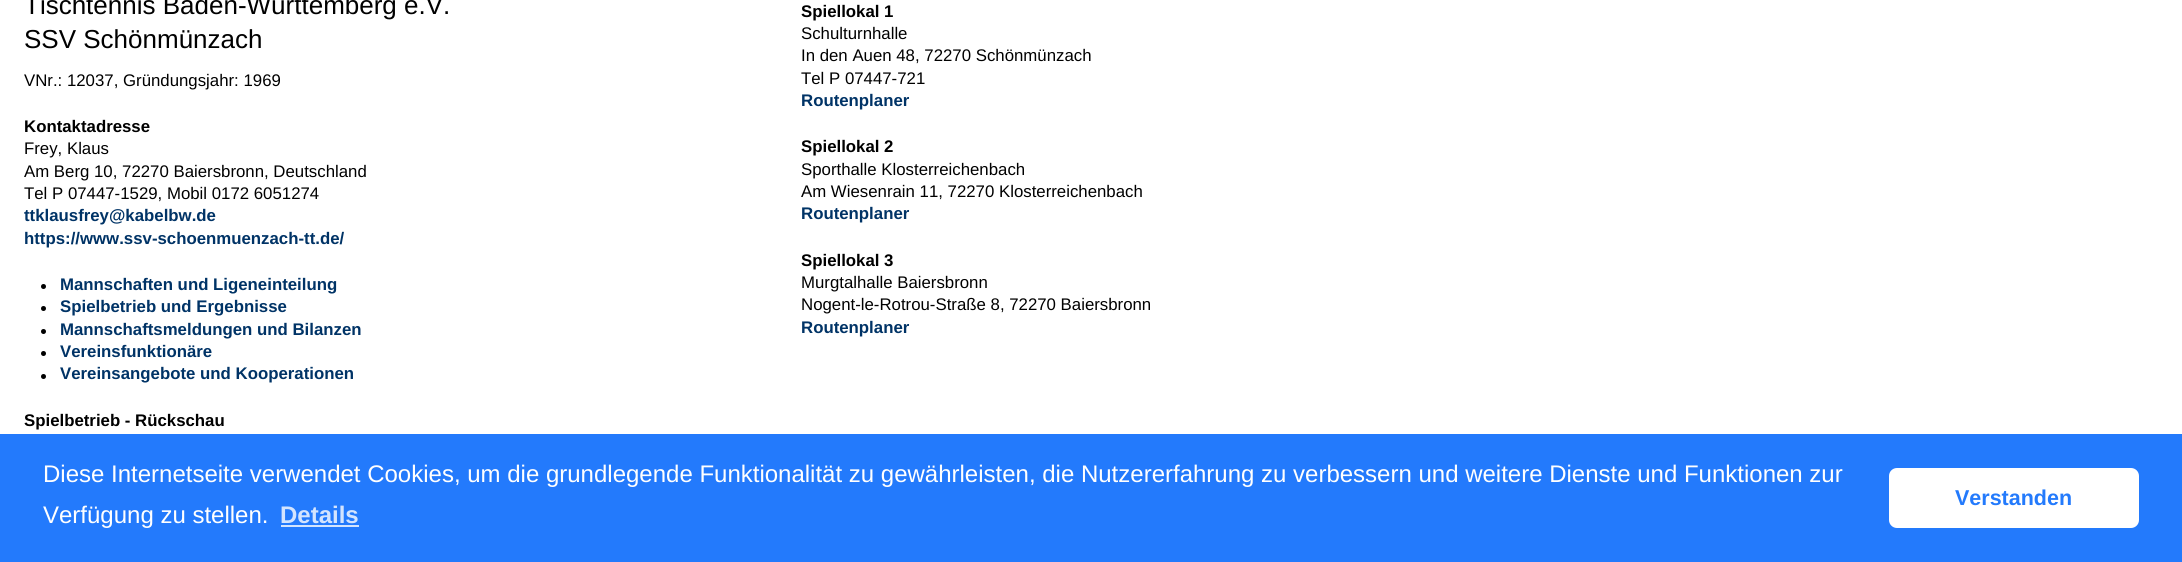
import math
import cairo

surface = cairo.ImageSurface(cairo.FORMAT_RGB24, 2182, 562)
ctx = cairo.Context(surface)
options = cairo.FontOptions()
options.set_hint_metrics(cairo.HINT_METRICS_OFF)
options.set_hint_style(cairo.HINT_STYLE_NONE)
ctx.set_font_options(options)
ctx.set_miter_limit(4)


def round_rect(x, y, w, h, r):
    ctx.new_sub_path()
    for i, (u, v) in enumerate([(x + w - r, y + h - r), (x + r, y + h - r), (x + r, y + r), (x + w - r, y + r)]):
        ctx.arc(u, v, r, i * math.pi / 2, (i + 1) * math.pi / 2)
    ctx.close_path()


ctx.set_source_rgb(1, 1, 1)
ctx.paint()
ctx.select_font_face("Liberation Sans")
ctx.set_font_size(26)
ctx.set_source_rgb(0, 0, 0)
ctx.move_to(24, 14)
ctx.show_text("Tischtennis Baden-Württemberg e.V.")
ctx.move_to(24, 48)
ctx.show_text("SSV Schönmünzach")
ctx.set_font_size(16.8)
ctx.move_to(24, 86)
ctx.show_text("VNr.: 12037, Gründungsjahr: 1969")
ctx.select_font_face("Liberation Sans", cairo.FONT_SLANT_NORMAL, cairo.FONT_WEIGHT_BOLD)
ctx.move_to(24, 132)
ctx.show_text("Kontaktadresse")
ctx.select_font_face("Liberation Sans")
ctx.move_to(24, 154)
ctx.show_text("Frey, Klaus")
ctx.move_to(24, 177)
ctx.show_text("Am Berg 10, 72270 Baiersbronn, Deutschland")
ctx.move_to(24, 199)
ctx.show_text("Tel P 07447-1529, Mobil 0172 6051274")
ctx.select_font_face("Liberation Sans", cairo.FONT_SLANT_NORMAL, cairo.FONT_WEIGHT_BOLD)
ctx.set_source_rgb(0, 0.2, 0.4)
ctx.move_to(24, 221)
ctx.show_text("ttklausfrey@kabelbw.de")
ctx.move_to(24, 244)
ctx.show_text("https://www.ssv-schoenmuenzach-tt.de/")
ctx.set_source_rgb(0, 0, 0)
ctx.new_path()
ctx.arc(43.5, 286.5, 2.5, 0, 2 * math.pi)
ctx.fill()
ctx.set_source_rgb(0, 0.2, 0.4)
ctx.move_to(60, 290)
ctx.show_text("Mannschaften und Ligeneinteilung")
ctx.set_source_rgb(0, 0, 0)
ctx.new_path()
ctx.arc(43.5, 308.5, 2.5, 0, 2 * math.pi)
ctx.fill()
ctx.set_source_rgb(0, 0.2, 0.4)
ctx.move_to(60, 312)
ctx.show_text("Spielbetrieb und Ergebnisse")
ctx.set_source_rgb(0, 0, 0)
ctx.new_path()
ctx.arc(43.5, 331.5, 2.5, 0, 2 * math.pi)
ctx.fill()
ctx.set_source_rgb(0, 0.2, 0.4)
ctx.move_to(60, 335)
ctx.show_text("Mannschaftsmeldungen und Bilanzen")
ctx.set_source_rgb(0, 0, 0)
ctx.new_path()
ctx.arc(43.5, 353.5, 2.5, 0, 2 * math.pi)
ctx.fill()
ctx.set_source_rgb(0, 0.2, 0.4)
ctx.move_to(60, 357)
ctx.show_text("Vereinsfunktionäre")
ctx.set_source_rgb(0, 0, 0)
ctx.new_path()
ctx.arc(43.5, 376.5, 2.5, 0, 2 * math.pi)
ctx.fill()
ctx.set_source_rgb(0, 0.2, 0.4)
ctx.move_to(60, 379)
ctx.show_text("Vereinsangebote und Kooperationen")
ctx.set_source_rgb(0, 0, 0)
ctx.move_to(801, 17)
ctx.show_text("Spiellokal 1")
ctx.select_font_face("Liberation Sans")
ctx.move_to(801, 39)
ctx.show_text("Schulturnhalle")
ctx.move_to(801, 61)
ctx.show_text("In den Auen 48, 72270 Schönmünzach")
ctx.move_to(801, 84)
ctx.show_text("Tel P 07447-721")
ctx.select_font_face("Liberation Sans", cairo.FONT_SLANT_NORMAL, cairo.FONT_WEIGHT_BOLD)
ctx.set_source_rgb(0, 0.2, 0.4)
ctx.move_to(801, 106)
ctx.show_text("Routenplaner")
ctx.set_source_rgb(0, 0, 0)
ctx.move_to(801, 152)
ctx.show_text("Spiellokal 2")
ctx.select_font_face("Liberation Sans")
ctx.move_to(801, 175)
ctx.show_text("Sporthalle Klosterreichenbach")
ctx.move_to(801, 197)
ctx.show_text("Am Wiesenrain 11, 72270 Klosterreichenbach")
ctx.select_font_face("Liberation Sans", cairo.FONT_SLANT_NORMAL, cairo.FONT_WEIGHT_BOLD)
ctx.set_source_rgb(0, 0.2, 0.4)
ctx.move_to(801, 219)
ctx.show_text("Routenplaner")
ctx.set_source_rgb(0, 0, 0)
ctx.move_to(801, 266)
ctx.show_text("Spiellokal 3")
ctx.select_font_face("Liberation Sans")
ctx.move_to(801, 288)
ctx.show_text("Murgtalhalle Baiersbronn")
ctx.move_to(801, 310)
ctx.show_text("Nogent-le-Rotrou-Straße 8, 72270 Baiersbronn")
ctx.select_font_face("Liberation Sans", cairo.FONT_SLANT_NORMAL, cairo.FONT_WEIGHT_BOLD)
ctx.set_source_rgb(0, 0.2, 0.4)
ctx.move_to(801, 333)
ctx.show_text("Routenplaner")
ctx.set_source_rgb(0, 0, 0)
ctx.move_to(24, 426)
ctx.show_text("Spielbetrieb - Rückschau")
ctx.set_source_rgb(0.137, 0.478, 0.988)
ctx.rectangle(0, 434, 2182, 128)
ctx.fill()
ctx.select_font_face("Liberation Sans")
ctx.set_font_size(24)
ctx.set_source_rgb(1, 1, 1)
ctx.move_to(43, 482)
ctx.show_text("Diese Internetseite verwendet Cookies, um die grundlegende Funktionalität zu gewährleisten, die Nutzererfahrung zu verbessern und weitere Dienste und Funktionen zur")
ctx.move_to(43, 523)
ctx.show_text("Verfügung zu stellen.")
ctx.select_font_face("Liberation Sans", cairo.FONT_SLANT_NORMAL, cairo.FONT_WEIGHT_BOLD)
ctx.set_source_rgb(0.827, 0.894, 0.996)
ctx.move_to(280, 523)
ctx.show_text("Details")
ctx.rectangle(281, 525, 78, 2)
ctx.fill()
ctx.set_source_rgb(1, 1, 1)
round_rect(1889, 468, 250, 60, 8)
ctx.fill()
ctx.set_font_size(21.5)
ctx.set_source_rgb(0.137, 0.478, 0.988)
ctx.move_to(1955, 505)
ctx.show_text("Verstanden")
surface.write_to_png("page.png")
